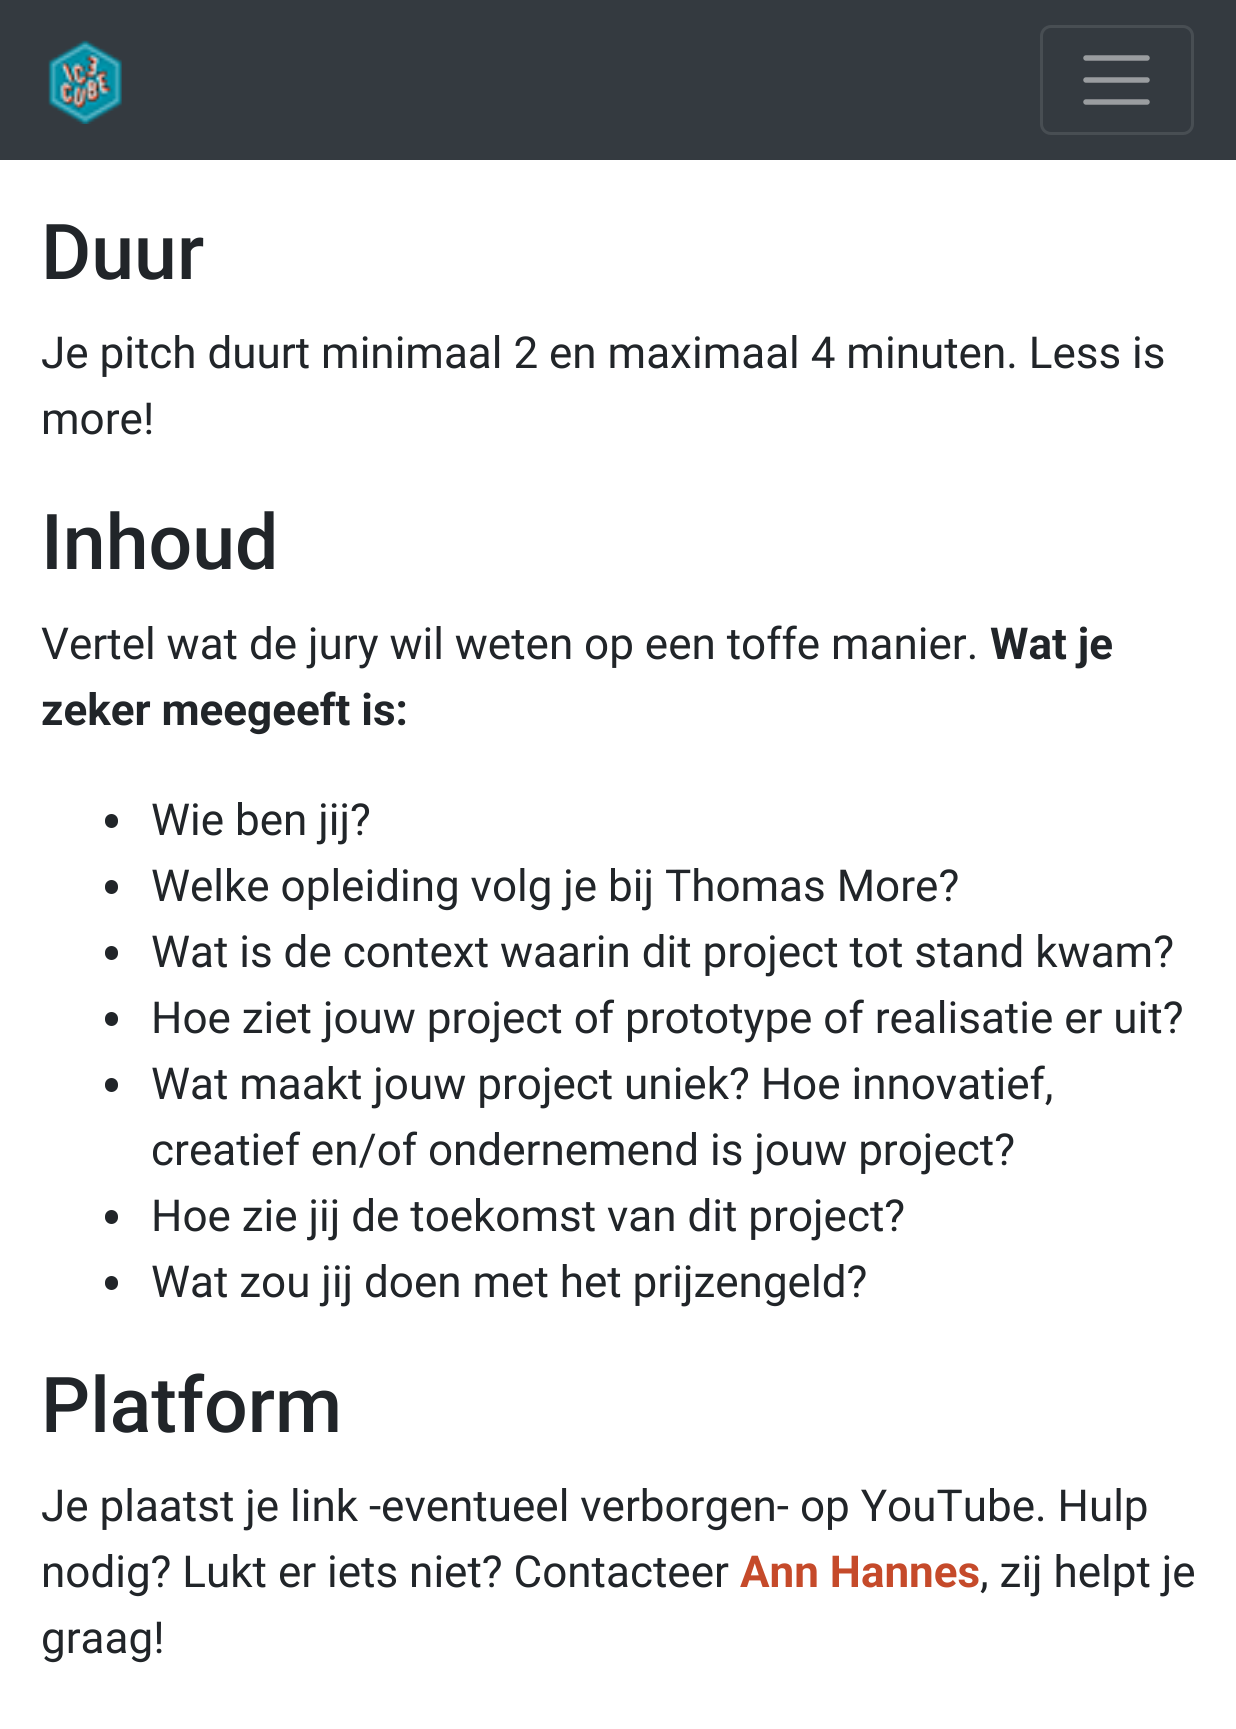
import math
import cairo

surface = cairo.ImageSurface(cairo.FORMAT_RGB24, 1236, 1729)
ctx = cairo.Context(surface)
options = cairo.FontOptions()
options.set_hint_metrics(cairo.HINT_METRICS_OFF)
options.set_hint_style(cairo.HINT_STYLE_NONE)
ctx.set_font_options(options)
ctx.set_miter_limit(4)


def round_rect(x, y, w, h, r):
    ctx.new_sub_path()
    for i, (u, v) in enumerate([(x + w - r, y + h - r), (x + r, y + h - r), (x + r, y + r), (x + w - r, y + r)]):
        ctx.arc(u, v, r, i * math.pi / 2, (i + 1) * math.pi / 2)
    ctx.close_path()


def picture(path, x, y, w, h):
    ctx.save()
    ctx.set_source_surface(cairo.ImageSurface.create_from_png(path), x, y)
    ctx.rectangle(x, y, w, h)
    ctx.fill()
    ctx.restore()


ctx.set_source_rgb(1, 1, 1)
ctx.paint()
ctx.set_source_rgb(0.204, 0.227, 0.251)
ctx.rectangle(0, 0, 1236, 160)
ctx.fill()
picture("img1.png", 48, 40, 74, 84)
round_rect(1041.5, 26.5, 151, 107, 9.5)
ctx.set_source_rgb(0.282, 0.306, 0.325)
ctx.set_line_width(3)
ctx.stroke()
ctx.new_path()
ctx.move_to(1086, 58)
ctx.line_to(1147, 58)
ctx.move_to(1086, 80)
ctx.line_to(1147, 80)
ctx.move_to(1086, 102)
ctx.line_to(1147, 102)
ctx.set_source_rgb(0.604, 0.616, 0.627)
ctx.set_line_width(5.5)
ctx.set_line_cap(cairo.LINE_CAP_ROUND)
ctx.stroke()
ctx.select_font_face("Roboto Medium")
ctx.set_font_size(77)
ctx.set_source_rgb(0.129, 0.145, 0.161)
ctx.move_to(41, 279)
ctx.show_text("Duur")
ctx.select_font_face("Roboto")
ctx.set_font_size(44)
ctx.move_to(41, 368)
ctx.show_text("Je pitch duurt minimaal 2 en maximaal 4 minuten. Less is")
ctx.move_to(41, 434)
ctx.show_text("more!")
ctx.select_font_face("Roboto Medium")
ctx.set_font_size(77)
ctx.move_to(41, 569)
ctx.show_text("Inhoud")
ctx.select_font_face("Roboto")
ctx.set_font_size(44)
ctx.move_to(41, 659)
ctx.show_text("Vertel wat de jury wil weten op een toffe manier.")
ctx.select_font_face("Roboto", cairo.FONT_SLANT_NORMAL, cairo.FONT_WEIGHT_BOLD)
ctx.move_to(990, 659)
ctx.show_text("Wat je")
ctx.move_to(41, 725)
ctx.show_text("zeker meegeeft is:")
round_rect(105, 814, 13, 14, 6.5)
ctx.fill()
ctx.select_font_face("Roboto")
ctx.move_to(151, 835)
ctx.show_text("Wie ben jij?")
round_rect(105, 880, 13, 14, 6.5)
ctx.fill()
ctx.move_to(151, 901)
ctx.show_text("Welke opleiding volg je bij Thomas More?")
round_rect(105, 946, 13, 14, 6.5)
ctx.fill()
ctx.move_to(151, 967)
ctx.show_text("Wat is de context waarin dit project tot stand kwam?")
round_rect(105, 1012, 13, 14, 6.5)
ctx.fill()
ctx.move_to(151, 1033)
ctx.show_text("Hoe ziet jouw project of prototype of realisatie er uit?")
round_rect(105, 1078, 13, 14, 6.5)
ctx.fill()
ctx.move_to(151, 1099)
ctx.show_text("Wat maakt jouw project uniek? Hoe innovatief,")
ctx.move_to(151, 1165)
ctx.show_text("creatief en/of ondernemend is jouw project?")
round_rect(105, 1210, 13, 14, 6.5)
ctx.fill()
ctx.move_to(151, 1231)
ctx.show_text("Hoe zie jij de toekomst van dit project?")
round_rect(105, 1276, 13, 14, 6.5)
ctx.fill()
ctx.move_to(151, 1297)
ctx.show_text("Wat zou jij doen met het prijzengeld?")
ctx.select_font_face("Roboto Medium")
ctx.set_font_size(77)
ctx.move_to(41, 1432)
ctx.show_text("Platform")
ctx.select_font_face("Roboto")
ctx.set_font_size(44)
ctx.move_to(41, 1521)
ctx.show_text("Je plaatst je link -eventueel verborgen- op YouTube. Hulp")
ctx.move_to(41, 1587)
ctx.show_text("nodig? Lukt er iets niet? Contacteer")
ctx.select_font_face("Roboto", cairo.FONT_SLANT_NORMAL, cairo.FONT_WEIGHT_BOLD)
ctx.set_source_rgb(0.773, 0.29, 0.165)
ctx.move_to(740, 1587)
ctx.show_text("Ann Hannes")
ctx.select_font_face("Roboto")
ctx.set_source_rgb(0.129, 0.145, 0.161)
ctx.move_to(980, 1587)
ctx.show_text(", zij helpt je")
ctx.move_to(41, 1653)
ctx.show_text("graag!")
surface.write_to_png("page.png")
